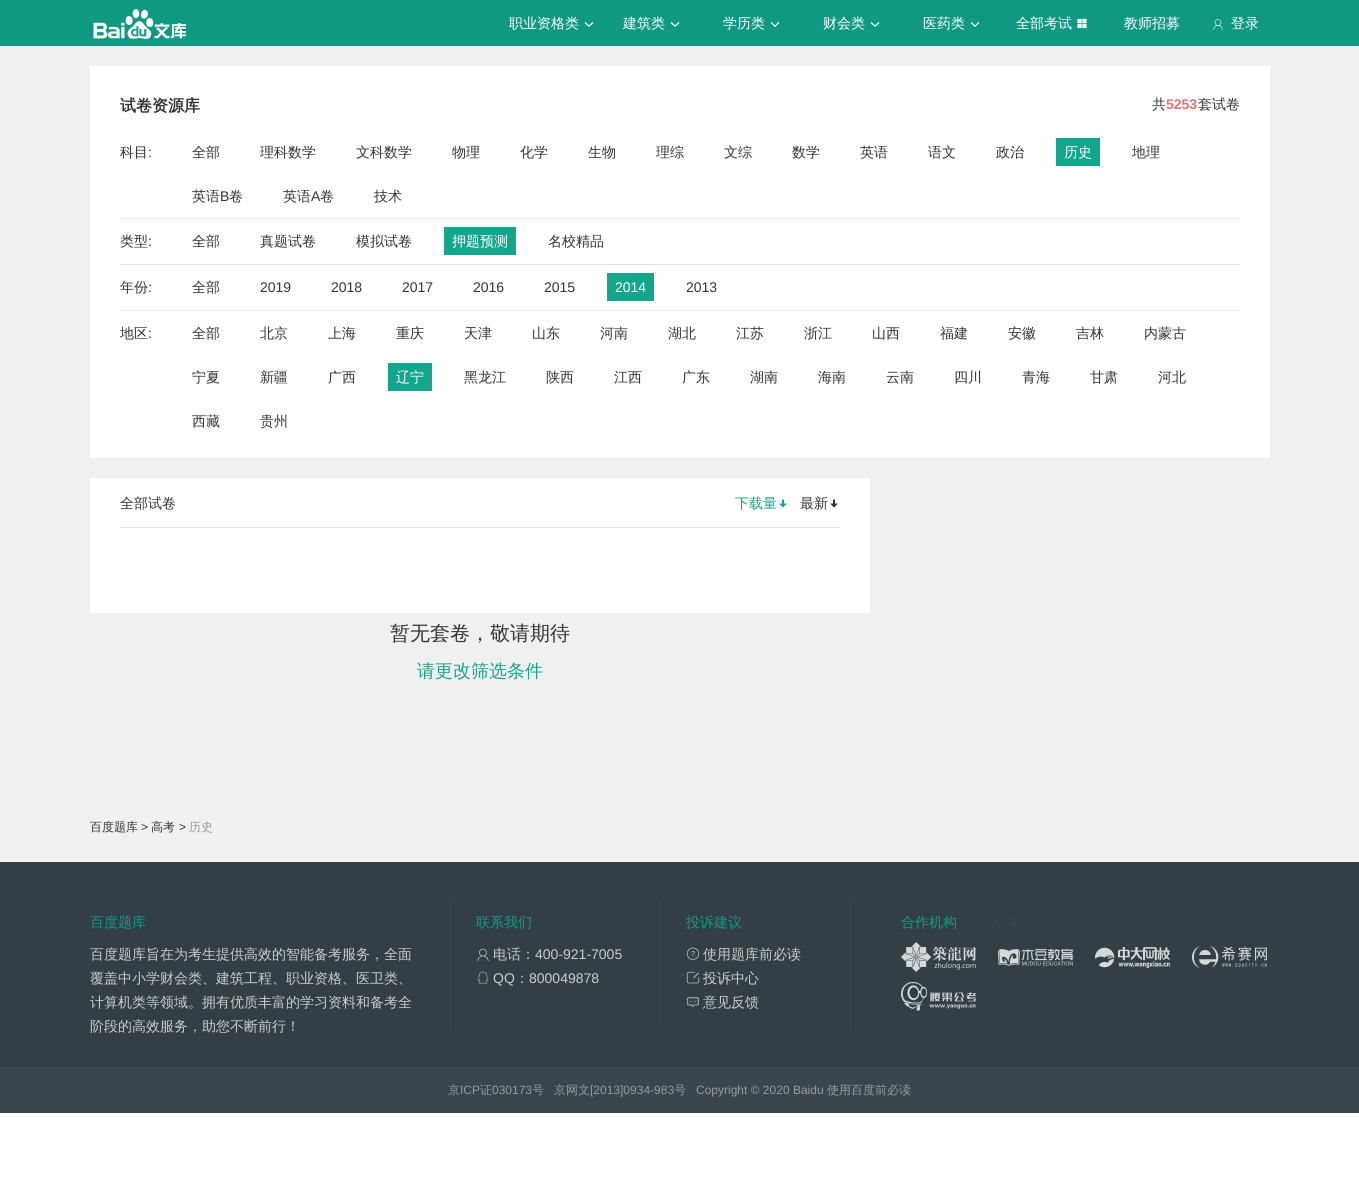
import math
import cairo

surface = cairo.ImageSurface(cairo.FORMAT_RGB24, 1359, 1197)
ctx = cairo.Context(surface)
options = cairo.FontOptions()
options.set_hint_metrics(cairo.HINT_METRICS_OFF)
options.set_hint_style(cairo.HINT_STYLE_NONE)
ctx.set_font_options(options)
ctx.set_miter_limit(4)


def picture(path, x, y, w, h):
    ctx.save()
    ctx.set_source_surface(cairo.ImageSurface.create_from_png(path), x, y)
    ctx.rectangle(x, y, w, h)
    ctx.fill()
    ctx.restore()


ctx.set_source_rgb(1, 1, 1)
ctx.paint()
ctx.set_source_rgb(0.059, 0.6, 0.51)
ctx.rectangle(0, 0, 1359, 46)
ctx.fill()
picture("img1.png", 93, 9, 93, 30)
ctx.select_font_face("WenQuanYi Zen Hei Medium")
ctx.set_font_size(14)
ctx.set_source_rgb(1, 1, 1)
ctx.move_to(509, 28)
ctx.show_text("职业资格类")
picture("img2.png", 584, 22, 10, 5)
ctx.move_to(623, 28)
ctx.show_text("建筑类")
picture("img2.png", 670, 22, 10, 5)
ctx.move_to(723, 28)
ctx.show_text("学历类")
picture("img2.png", 770, 22, 10, 5)
ctx.move_to(823, 28)
ctx.show_text("财会类")
picture("img2.png", 870, 22, 10, 5)
ctx.move_to(923, 28)
ctx.show_text("医药类")
picture("img2.png", 970, 22, 10, 5)
ctx.move_to(1016, 28)
ctx.show_text("全部考试")
picture("img3.png", 1077, 18, 10, 11)
ctx.move_to(1124, 28)
ctx.show_text("教师招募")
picture("img4.png", 1213, 19, 10, 11)
ctx.move_to(1231, 28)
ctx.show_text("登录")
ctx.set_source_rgb(0.941, 0.941, 0.941)
ctx.rectangle(0, 46, 1359, 816)
ctx.fill()
ctx.set_source_rgb(1, 1, 1)
ctx.rectangle(90, 66, 1180, 392)
ctx.fill()
ctx.select_font_face("WenQuanYi Zen Hei", cairo.FONT_SLANT_NORMAL, cairo.FONT_WEIGHT_BOLD)
ctx.set_font_size(16)
ctx.set_source_rgb(0.2, 0.2, 0.2)
ctx.move_to(120, 111)
ctx.show_text("试卷资源库")
ctx.select_font_face("WenQuanYi Zen Hei Medium")
ctx.set_font_size(14)
ctx.move_to(1152, 109)
ctx.show_text("共")
ctx.select_font_face("Liberation Sans", cairo.FONT_SLANT_NORMAL, cairo.FONT_WEIGHT_BOLD)
ctx.set_source_rgb(0.898, 0.451, 0.451)
ctx.move_to(1166, 109)
ctx.show_text("5253")
ctx.select_font_face("WenQuanYi Zen Hei Medium")
ctx.set_source_rgb(0.2, 0.2, 0.2)
ctx.move_to(1198, 109)
ctx.show_text("套试卷")
ctx.set_source_rgb(0.898, 0.898, 0.898)
ctx.rectangle(120, 218, 1120, 1)
ctx.fill()
ctx.set_source_rgb(0.2, 0.2, 0.2)
ctx.move_to(120, 157)
ctx.show_text("科目")
ctx.select_font_face("Liberation Sans")
ctx.move_to(148, 157)
ctx.show_text(":")
ctx.select_font_face("WenQuanYi Zen Hei Medium")
ctx.move_to(192, 157)
ctx.show_text("全部")
ctx.move_to(260, 157)
ctx.show_text("理科数学")
ctx.move_to(356, 157)
ctx.show_text("文科数学")
ctx.move_to(452, 157)
ctx.show_text("物理")
ctx.move_to(520, 157)
ctx.show_text("化学")
ctx.move_to(588, 157)
ctx.show_text("生物")
ctx.move_to(656, 157)
ctx.show_text("理综")
ctx.move_to(724, 157)
ctx.show_text("文综")
ctx.move_to(792, 157)
ctx.show_text("数学")
ctx.move_to(860, 157)
ctx.show_text("英语")
ctx.move_to(928, 157)
ctx.show_text("语文")
ctx.move_to(996, 157)
ctx.show_text("政治")
ctx.set_source_rgb(0.067, 0.651, 0.553)
ctx.rectangle(1056, 138, 44, 28)
ctx.fill()
ctx.set_source_rgb(1, 1, 1)
ctx.move_to(1064, 157)
ctx.show_text("历史")
ctx.set_source_rgb(0.2, 0.2, 0.2)
ctx.move_to(1132, 157)
ctx.show_text("地理")
ctx.move_to(192, 201)
ctx.show_text("英语")
ctx.select_font_face("Liberation Sans")
ctx.move_to(220, 201)
ctx.show_text("B")
ctx.select_font_face("WenQuanYi Zen Hei Medium")
ctx.move_to(229, 201)
ctx.show_text("卷")
ctx.move_to(283, 201)
ctx.show_text("英语")
ctx.select_font_face("Liberation Sans")
ctx.move_to(311, 201)
ctx.show_text("A")
ctx.select_font_face("WenQuanYi Zen Hei Medium")
ctx.move_to(320, 201)
ctx.show_text("卷")
ctx.move_to(374, 201)
ctx.show_text("技术")
ctx.set_source_rgb(0.898, 0.898, 0.898)
ctx.rectangle(120, 264, 1120, 1)
ctx.fill()
ctx.set_source_rgb(0.2, 0.2, 0.2)
ctx.move_to(120, 246)
ctx.show_text("类型")
ctx.select_font_face("Liberation Sans")
ctx.move_to(148, 246)
ctx.show_text(":")
ctx.select_font_face("WenQuanYi Zen Hei Medium")
ctx.move_to(192, 246)
ctx.show_text("全部")
ctx.move_to(260, 246)
ctx.show_text("真题试卷")
ctx.move_to(356, 246)
ctx.show_text("模拟试卷")
ctx.set_source_rgb(0.067, 0.651, 0.553)
ctx.rectangle(444, 227, 72, 28)
ctx.fill()
ctx.set_source_rgb(1, 1, 1)
ctx.move_to(452, 246)
ctx.show_text("押题预测")
ctx.set_source_rgb(0.2, 0.2, 0.2)
ctx.move_to(548, 246)
ctx.show_text("名校精品")
ctx.set_source_rgb(0.898, 0.898, 0.898)
ctx.rectangle(120, 310, 1120, 1)
ctx.fill()
ctx.set_source_rgb(0.2, 0.2, 0.2)
ctx.move_to(120, 292)
ctx.show_text("年份")
ctx.select_font_face("Liberation Sans")
ctx.move_to(148, 292)
ctx.show_text(":")
ctx.select_font_face("WenQuanYi Zen Hei Medium")
ctx.move_to(192, 292)
ctx.show_text("全部")
ctx.select_font_face("Liberation Sans")
ctx.move_to(260, 292)
ctx.show_text("2019")
ctx.move_to(331, 292)
ctx.show_text("2018")
ctx.move_to(402, 292)
ctx.show_text("2017")
ctx.move_to(473, 292)
ctx.show_text("2016")
ctx.move_to(544, 292)
ctx.show_text("2015")
ctx.set_source_rgb(0.067, 0.651, 0.553)
ctx.rectangle(607, 273, 47, 28)
ctx.fill()
ctx.set_source_rgb(1, 1, 1)
ctx.move_to(615, 292)
ctx.show_text("2014")
ctx.set_source_rgb(0.2, 0.2, 0.2)
ctx.move_to(686, 292)
ctx.show_text("2013")
ctx.select_font_face("WenQuanYi Zen Hei Medium")
ctx.move_to(120, 338)
ctx.show_text("地区")
ctx.select_font_face("Liberation Sans")
ctx.move_to(148, 338)
ctx.show_text(":")
ctx.select_font_face("WenQuanYi Zen Hei Medium")
ctx.move_to(192, 338)
ctx.show_text("全部")
ctx.move_to(260, 338)
ctx.show_text("北京")
ctx.move_to(328, 338)
ctx.show_text("上海")
ctx.move_to(396, 338)
ctx.show_text("重庆")
ctx.move_to(464, 338)
ctx.show_text("天津")
ctx.move_to(532, 338)
ctx.show_text("山东")
ctx.move_to(600, 338)
ctx.show_text("河南")
ctx.move_to(668, 338)
ctx.show_text("湖北")
ctx.move_to(736, 338)
ctx.show_text("江苏")
ctx.move_to(804, 338)
ctx.show_text("浙江")
ctx.move_to(872, 338)
ctx.show_text("山西")
ctx.move_to(940, 338)
ctx.show_text("福建")
ctx.move_to(1008, 338)
ctx.show_text("安徽")
ctx.move_to(1076, 338)
ctx.show_text("吉林")
ctx.move_to(1144, 338)
ctx.show_text("内蒙古")
ctx.move_to(192, 382)
ctx.show_text("宁夏")
ctx.move_to(260, 382)
ctx.show_text("新疆")
ctx.move_to(328, 382)
ctx.show_text("广西")
ctx.set_source_rgb(0.067, 0.651, 0.553)
ctx.rectangle(388, 363, 44, 28)
ctx.fill()
ctx.set_source_rgb(1, 1, 1)
ctx.move_to(396, 382)
ctx.show_text("辽宁")
ctx.set_source_rgb(0.2, 0.2, 0.2)
ctx.move_to(464, 382)
ctx.show_text("黑龙江")
ctx.move_to(546, 382)
ctx.show_text("陕西")
ctx.move_to(614, 382)
ctx.show_text("江西")
ctx.move_to(682, 382)
ctx.show_text("广东")
ctx.move_to(750, 382)
ctx.show_text("湖南")
ctx.move_to(818, 382)
ctx.show_text("海南")
ctx.move_to(886, 382)
ctx.show_text("云南")
ctx.move_to(954, 382)
ctx.show_text("四川")
ctx.move_to(1022, 382)
ctx.show_text("青海")
ctx.move_to(1090, 382)
ctx.show_text("甘肃")
ctx.move_to(1158, 382)
ctx.show_text("河北")
ctx.move_to(192, 426)
ctx.show_text("西藏")
ctx.move_to(260, 426)
ctx.show_text("贵州")
ctx.set_source_rgb(1, 1, 1)
ctx.rectangle(90, 478, 780, 135)
ctx.fill()
ctx.set_source_rgb(0.878, 0.878, 0.878)
ctx.rectangle(120, 527, 720, 1)
ctx.fill()
ctx.set_source_rgb(0.2, 0.2, 0.2)
ctx.move_to(120, 508)
ctx.show_text("全部试卷")
ctx.set_source_rgb(0.067, 0.651, 0.553)
ctx.move_to(735, 508)
ctx.show_text("下载量")
picture("img5.png", 779, 499, 8, 9)
ctx.set_source_rgb(0.2, 0.2, 0.2)
ctx.move_to(800, 508)
ctx.show_text("最新")
picture("img6.png", 830, 499, 8, 9)
ctx.set_font_size(20)
ctx.move_to(390, 640)
ctx.show_text("暂无套卷，敬请期待")
ctx.set_font_size(18)
ctx.set_source_rgb(0.067, 0.651, 0.553)
ctx.move_to(417, 677)
ctx.show_text("请更改筛选条件")
ctx.set_font_size(12)
ctx.set_source_rgb(0.2, 0.2, 0.2)
ctx.move_to(90, 831)
ctx.show_text("百度题库")
ctx.select_font_face("Liberation Sans")
ctx.move_to(141, 831)
ctx.show_text(">")
ctx.select_font_face("WenQuanYi Zen Hei Medium")
ctx.move_to(151, 831)
ctx.show_text("高考")
ctx.select_font_face("Liberation Sans")
ctx.move_to(179, 831)
ctx.show_text(">")
ctx.select_font_face("WenQuanYi Zen Hei Medium")
ctx.set_source_rgb(0.6, 0.6, 0.6)
ctx.move_to(189, 831)
ctx.show_text("历史")
ctx.set_source_rgb(0.204, 0.247, 0.271)
ctx.rectangle(0, 862, 1359, 205)
ctx.fill()
ctx.set_source_rgb(0.224, 0.275, 0.302)
ctx.rectangle(450, 902, 1, 125)
ctx.fill()
ctx.set_font_size(14)
ctx.set_source_rgb(0.078, 0.6, 0.529)
ctx.move_to(90, 927)
ctx.show_text("百度题库")
ctx.set_source_rgb(0.8, 0.8, 0.8)
ctx.move_to(90, 959)
ctx.show_text("百度题库旨在为考生提供高效的智能备考服务，全面")
ctx.move_to(90, 983)
ctx.show_text("覆盖中小学财会类、建筑工程、职业资格、医卫类、")
ctx.move_to(90, 1007)
ctx.show_text("计算机类等领域。拥有优质丰富的学习资料和备考全")
ctx.move_to(90, 1031)
ctx.show_text("阶段的高效服务，助您不断前行！")
ctx.set_source_rgb(0.224, 0.275, 0.302)
ctx.rectangle(660, 902, 1, 125)
ctx.fill()
ctx.set_source_rgb(0.078, 0.6, 0.529)
ctx.move_to(476, 927)
ctx.show_text("联系我们")
picture("img7.png", 477, 948, 12, 13)
ctx.set_source_rgb(0.8, 0.8, 0.8)
ctx.move_to(493, 959)
ctx.show_text("电话：")
ctx.select_font_face("Liberation Sans")
ctx.move_to(535, 959)
ctx.show_text("400-921-7005")
picture("img8.png", 477, 971, 12, 13)
ctx.move_to(493, 983)
ctx.show_text("QQ")
ctx.select_font_face("WenQuanYi Zen Hei Medium")
ctx.move_to(515, 983)
ctx.show_text("：")
ctx.select_font_face("Liberation Sans")
ctx.move_to(529, 983)
ctx.show_text("800049878")
ctx.set_source_rgb(0.224, 0.275, 0.302)
ctx.rectangle(850, 902, 1, 125)
ctx.fill()
ctx.select_font_face("WenQuanYi Zen Hei Medium")
ctx.set_source_rgb(0.078, 0.6, 0.529)
ctx.move_to(686, 927)
ctx.show_text("投诉建议")
picture("img9.png", 686, 947, 14, 13)
ctx.set_source_rgb(0.8, 0.8, 0.8)
ctx.move_to(703, 959)
ctx.show_text("使用题库前必读")
picture("img10.png", 686, 971, 14, 13)
ctx.move_to(703, 983)
ctx.show_text("投诉中心")
picture("img11.png", 687, 997, 12, 10)
ctx.move_to(703, 1007)
ctx.show_text("意见反馈")
ctx.set_source_rgb(0.078, 0.6, 0.529)
ctx.move_to(901, 927)
ctx.show_text("合作机构")
picture("img12.png", 995, 917, 6, 10)
picture("img13.png", 1011, 917, 5, 10)
picture("img14.png", 901, 942, 75, 30)
picture("img15.png", 998, 949, 75, 17)
picture("img16.png", 1095, 947, 75, 21)
picture("img17.png", 1192, 946, 75, 22)
picture("img18.png", 901, 982, 75, 29)
ctx.set_source_rgb(0.224, 0.275, 0.302)
ctx.rectangle(0, 1067, 1359, 46)
ctx.fill()
ctx.set_font_size(12)
ctx.set_source_rgb(0.6, 0.6, 0.6)
ctx.move_to(448, 1094)
ctx.show_text("京")
ctx.select_font_face("Liberation Sans")
ctx.move_to(460, 1094)
ctx.show_text("ICP")
ctx.select_font_face("WenQuanYi Zen Hei Medium")
ctx.move_to(480, 1094)
ctx.show_text("证")
ctx.select_font_face("Liberation Sans")
ctx.move_to(492, 1094)
ctx.show_text("030173")
ctx.select_font_face("WenQuanYi Zen Hei Medium")
ctx.move_to(532, 1094)
ctx.show_text("号")
ctx.move_to(554, 1094)
ctx.show_text("京网文")
ctx.select_font_face("Liberation Sans")
ctx.move_to(590, 1094)
ctx.show_text("[2013]0934-983")
ctx.select_font_face("WenQuanYi Zen Hei Medium")
ctx.move_to(674, 1094)
ctx.show_text("号")
ctx.select_font_face("Liberation Sans")
ctx.move_to(696, 1094)
ctx.show_text("Copyright © 2020 Baidu")
ctx.select_font_face("WenQuanYi Zen Hei Medium")
ctx.move_to(827, 1094)
ctx.show_text("使用百度前必读")
surface.write_to_png("page.png")
